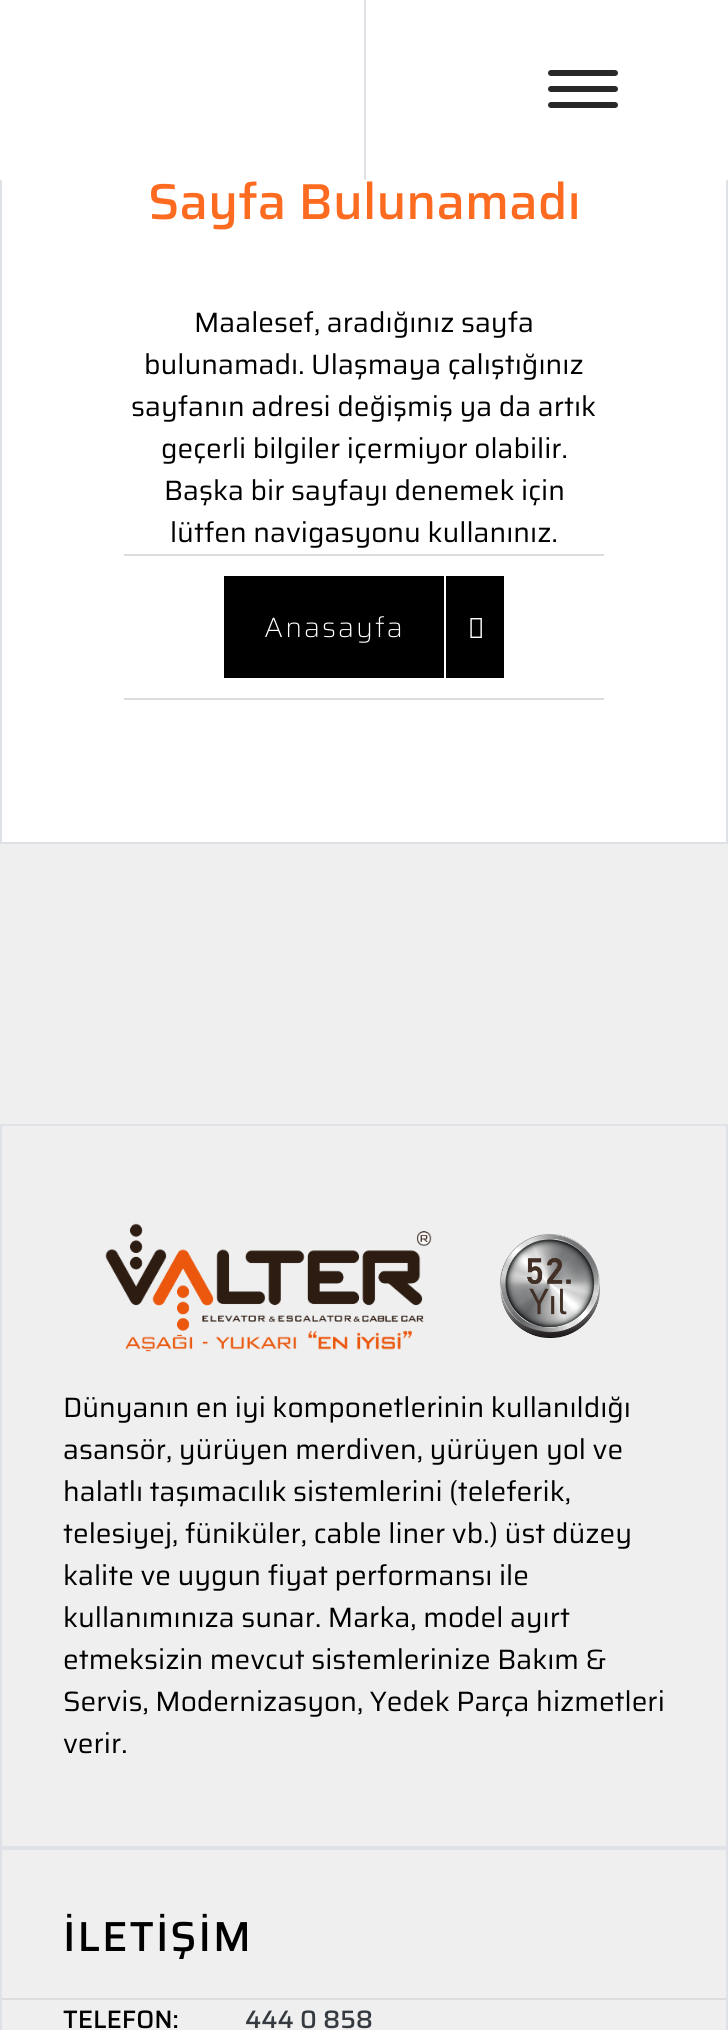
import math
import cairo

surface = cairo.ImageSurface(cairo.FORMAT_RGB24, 728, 2030)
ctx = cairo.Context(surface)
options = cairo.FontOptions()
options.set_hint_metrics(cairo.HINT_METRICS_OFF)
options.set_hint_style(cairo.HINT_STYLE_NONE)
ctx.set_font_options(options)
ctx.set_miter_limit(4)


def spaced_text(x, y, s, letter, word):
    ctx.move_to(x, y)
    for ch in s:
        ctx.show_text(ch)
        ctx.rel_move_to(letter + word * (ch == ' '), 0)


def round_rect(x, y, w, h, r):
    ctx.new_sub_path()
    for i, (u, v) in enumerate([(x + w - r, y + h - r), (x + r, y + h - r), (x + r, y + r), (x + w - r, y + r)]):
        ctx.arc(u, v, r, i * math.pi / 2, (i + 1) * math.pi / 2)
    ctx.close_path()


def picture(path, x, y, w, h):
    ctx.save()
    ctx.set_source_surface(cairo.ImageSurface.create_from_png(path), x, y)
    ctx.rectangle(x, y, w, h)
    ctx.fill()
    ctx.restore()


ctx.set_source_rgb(0.937, 0.937, 0.937)
ctx.paint()
ctx.set_source_rgb(1, 1, 1)
ctx.rectangle(2, 180, 724, 662)
ctx.fill()
ctx.rectangle(1, 109, 726, 734)
ctx.set_source_rgb(0.871, 0.886, 0.902)
ctx.stroke()
ctx.set_source_rgb(1, 1, 1)
ctx.rectangle(0, 0, 728, 180)
ctx.fill()
ctx.set_source_rgb(0.871, 0.886, 0.902)
ctx.rectangle(364, 0, 2, 180)
ctx.fill()
ctx.set_source_rgb(0.157, 0.157, 0.157)
round_rect(548, 70, 70, 6, 3)
ctx.fill()
round_rect(548, 86, 70, 6, 3)
ctx.fill()
round_rect(548, 102, 70, 6, 3)
ctx.fill()
ctx.select_font_face("Saira Medium")
ctx.set_font_size(50.5)
ctx.set_source_rgb(0.988, 0.42, 0.125)
ctx.move_to(148, 219)
ctx.show_text("Sayfa Bulunamadı")
ctx.set_source_rgb(0.867, 0.867, 0.867)
ctx.rectangle(124, 554, 480, 2)
ctx.fill()
ctx.select_font_face("Saira")
ctx.set_font_size(28)
ctx.set_source_rgb(0, 0, 0)
ctx.move_to(194, 332)
ctx.show_text("Maalesef, aradığınız sayfa")
ctx.move_to(144, 374)
ctx.show_text("bulunamadı. Ulaşmaya çalıştığınız")
ctx.move_to(131, 416)
ctx.show_text("sayfanın adresi değişmiş ya da artık")
ctx.move_to(161, 458)
ctx.show_text("geçerli bilgiler içermiyor olabilir.")
ctx.move_to(164, 500)
ctx.show_text("Başka bir sayfayı denemek için")
ctx.move_to(170, 542)
ctx.show_text("lütfen navigasyonu kullanınız.")
ctx.set_source_rgb(0.867, 0.867, 0.867)
ctx.rectangle(124, 698, 480, 2)
ctx.fill()
ctx.set_source_rgb(0, 0, 0)
ctx.rectangle(224, 576, 280, 102)
ctx.fill()
ctx.select_font_face("Saira ExtraLight")
ctx.set_source_rgb(1, 1, 1)
spaced_text(264, 637, "Anasayfa", 2, 0)
ctx.rectangle(444, 576, 2, 102)
ctx.fill()
picture("img1.png", 470, 618, 12, 20)
ctx.rectangle(1, 1125, 726, 722)
ctx.set_source_rgb(0.871, 0.886, 0.902)
ctx.stroke()
picture("img2.png", 105, 1223, 327, 129)
picture("img3.png", 500, 1234, 100, 104)
ctx.select_font_face("Saira")
ctx.set_source_rgb(0, 0, 0)
ctx.move_to(63, 1417)
ctx.show_text("Dünyanın en iyi komponetlerinin kullanıldığı")
ctx.move_to(63, 1459)
ctx.show_text("asansör, yürüyen merdiven, yürüyen yol ve")
ctx.move_to(63, 1501)
ctx.show_text("halatlı taşımacılık sistemlerini (teleferik,")
ctx.move_to(63, 1543)
ctx.show_text("telesiyej, füniküler, cable liner vb.) üst düzey")
ctx.move_to(63, 1585)
ctx.show_text("kalite ve uygun fiyat performansı ile")
ctx.move_to(63, 1627)
ctx.show_text("kullanımınıza sunar. Marka, model ayırt")
ctx.move_to(63, 1669)
ctx.show_text("etmeksizin mevcut sistemlerinize Bakım &")
ctx.move_to(63, 1711)
ctx.show_text("Servis, Modernizasyon, Yedek Parça hizmetleri")
ctx.move_to(63, 1753)
ctx.show_text("verir.")
ctx.rectangle(1, 1849, 726, 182)
ctx.set_source_rgb(0.871, 0.886, 0.902)
ctx.stroke()
ctx.select_font_face("Saira Medium")
ctx.set_font_size(42)
ctx.set_source_rgb(0, 0, 0)
spaced_text(63, 1951, "İLETİŞİM", 2, 0)
ctx.set_font_size(25.25)
ctx.move_to(63, 2028)
ctx.show_text("TELEFON:")
ctx.set_source_rgb(0.204, 0.227, 0.251)
ctx.move_to(245, 2028)
ctx.show_text("444 0 858")
ctx.set_source_rgb(0.867, 0.867, 0.867)
ctx.rectangle(2, 1998, 724, 2)
ctx.fill()
surface.write_to_png("page.png")
